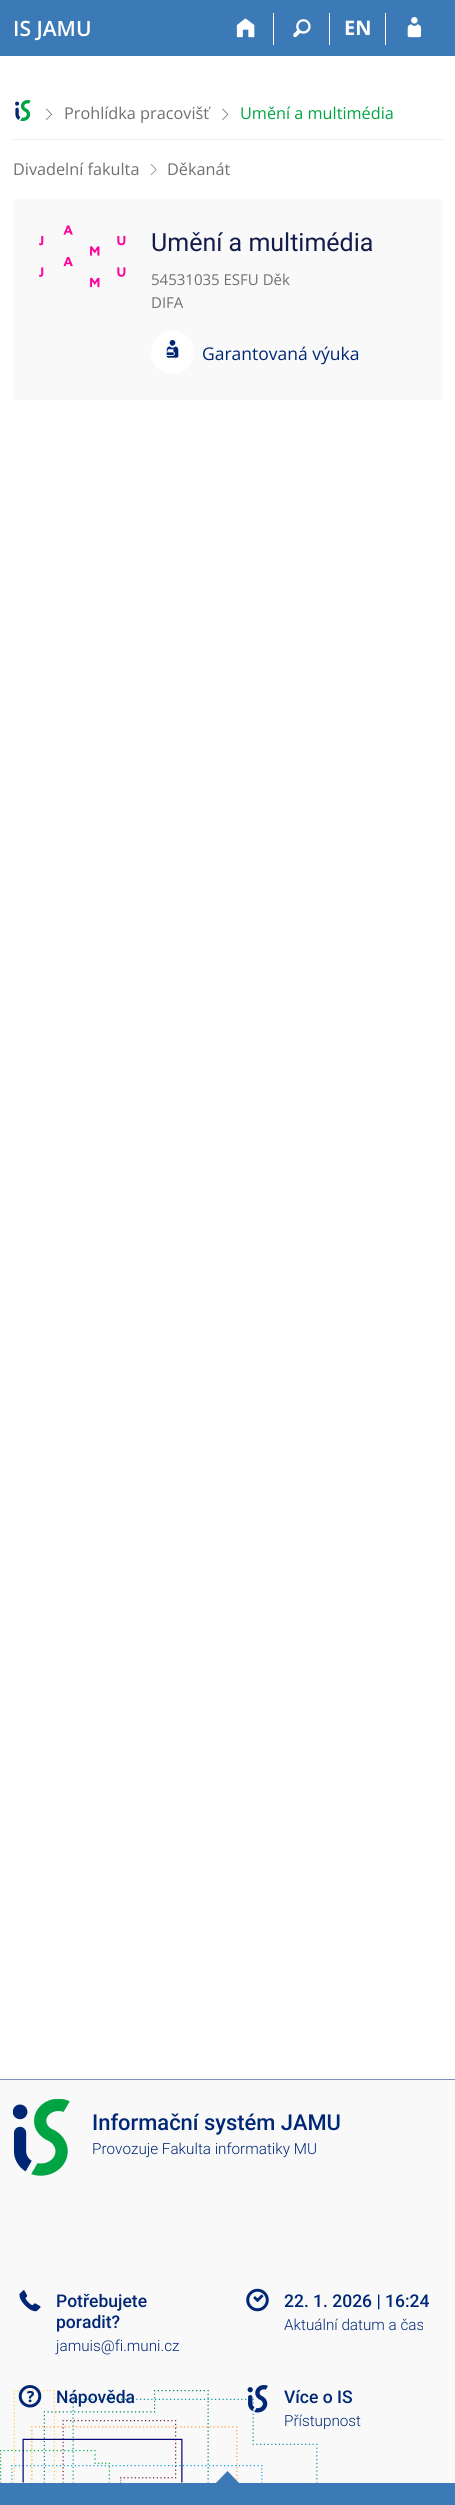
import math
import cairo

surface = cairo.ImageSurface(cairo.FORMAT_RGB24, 455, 2505)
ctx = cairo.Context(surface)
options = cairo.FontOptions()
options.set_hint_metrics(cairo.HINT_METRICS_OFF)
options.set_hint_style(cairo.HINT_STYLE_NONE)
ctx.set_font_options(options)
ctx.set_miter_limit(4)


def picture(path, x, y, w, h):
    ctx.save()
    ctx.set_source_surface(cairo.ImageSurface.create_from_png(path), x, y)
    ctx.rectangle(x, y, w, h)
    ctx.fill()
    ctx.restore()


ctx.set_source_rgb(1, 1, 1)
ctx.paint()
ctx.set_source_rgb(0.235, 0.478, 0.718)
ctx.rectangle(0, 0, 455, 56)
ctx.fill()
ctx.select_font_face("Open Sans SemiBold")
ctx.set_font_size(21)
ctx.set_source_rgb(1, 1, 1)
ctx.move_to(13, 36)
ctx.show_text("IS JAMU")
ctx.rectangle(273, 13, 1, 32)
ctx.fill()
picture("img1.png", 236, 18, 19, 20)
ctx.rectangle(329, 13, 1, 32)
ctx.fill()
picture("img2.png", 293, 19, 18, 19)
ctx.rectangle(385, 13, 1, 32)
ctx.fill()
ctx.select_font_face("Open Sans", cairo.FONT_SLANT_NORMAL, cairo.FONT_WEIGHT_BOLD)
ctx.set_font_size(20)
ctx.move_to(344, 35)
ctx.show_text("EN")
picture("img3.png", 407, 17, 15, 21)
picture("img4.png", 15, 100, 16, 21)
picture("img5.png", 46, 108, 6, 12)
ctx.select_font_face("Open Sans")
ctx.set_font_size(16.25)
ctx.set_source_rgb(0.439, 0.439, 0.439)
ctx.move_to(64, 119)
ctx.show_text("Prohlídka pracovišť")
picture("img6.png", 222, 108, 7, 12)
ctx.set_source_rgb(0, 0.643, 0.259)
ctx.move_to(240, 119)
ctx.show_text("Umění a multimédia")
ctx.set_source_rgb(0.918, 0.918, 0.918)
ctx.rectangle(13, 139, 430, 1)
ctx.fill()
ctx.set_source_rgb(0.439, 0.439, 0.439)
ctx.move_to(13, 175)
ctx.show_text("Divadelní fakulta")
picture("img7.png", 150, 164, 7, 11)
ctx.move_to(167, 175)
ctx.show_text("Děkanát")
ctx.set_source_rgb(0.976, 0.976, 0.976)
ctx.rectangle(13, 199, 430, 201)
ctx.fill()
picture("img8.png", 39, 225, 87, 63)
ctx.select_font_face("Roboto")
ctx.set_font_size(25)
ctx.set_source_rgb(0.078, 0.11, 0.29)
ctx.move_to(151, 251)
ctx.show_text("Umění a multimédia")
ctx.select_font_face("Open Sans")
ctx.set_font_size(15)
ctx.set_source_rgb(0.439, 0.439, 0.439)
ctx.move_to(151, 285)
ctx.show_text("54531035 ESFU Děk")
ctx.move_to(151, 308)
ctx.show_text("DIFA")
ctx.set_source_rgb(1, 1, 1)
ctx.new_path()
ctx.arc(172.5, 352.5, 21.5, 0, 2 * math.pi)
ctx.fill()
picture("img9.png", 166, 340, 13, 18)
ctx.set_font_size(17.5)
ctx.set_source_rgb(0, 0.153, 0.463)
ctx.move_to(202, 360)
ctx.show_text("Garantovaná výuka")
ctx.set_source_rgb(0.976, 0.976, 0.976)
ctx.rectangle(0, 2080, 455, 403)
ctx.fill()
ctx.set_source_rgb(0.49, 0.565, 0.722)
ctx.rectangle(0, 2079, 455, 1)
ctx.fill()
picture("img10.png", 0, 2390, 318, 93)
picture("img11.png", 13, 2099, 57, 77)
ctx.select_font_face("Roboto Medium")
ctx.set_font_size(21.9)
ctx.set_source_rgb(0, 0.153, 0.463)
ctx.move_to(92, 2130)
ctx.show_text("Informační systém JAMU")
ctx.select_font_face("Roboto Light")
ctx.set_font_size(15.25)
ctx.move_to(92, 2154)
ctx.show_text("Provozuje Fakulta informatiky MU")
picture("img12.png", 19, 2290, 22, 22)
ctx.select_font_face("Roboto Medium")
ctx.set_font_size(17.5)
ctx.move_to(56, 2307)
ctx.show_text("Potřebujete")
ctx.move_to(56, 2328)
ctx.show_text("poradit?")
ctx.select_font_face("Roboto Light")
ctx.set_font_size(15.25)
ctx.move_to(56, 2351)
ctx.show_text("jamuis@fi.muni.cz")
picture("img13.png", 18, 2385, 24, 23)
ctx.select_font_face("Roboto Medium")
ctx.set_font_size(17.5)
ctx.move_to(56, 2403)
ctx.show_text("Nápověda")
picture("img14.png", 246, 2288, 23, 24)
ctx.move_to(284, 2307)
ctx.show_text("22. 1. 2026 | 16:24")
ctx.select_font_face("Roboto Light")
ctx.set_font_size(15.25)
ctx.move_to(284, 2330)
ctx.show_text("Aktuální datum a čas")
picture("img15.png", 247, 2385, 21, 28)
ctx.select_font_face("Roboto Medium")
ctx.set_font_size(17.5)
ctx.move_to(284, 2403)
ctx.show_text("Více o IS")
ctx.select_font_face("Roboto Light")
ctx.set_font_size(15.25)
ctx.move_to(284, 2426)
ctx.show_text("Přístupnost")
ctx.set_source_rgb(0.235, 0.478, 0.718)
ctx.rectangle(0, 2483, 455, 22)
ctx.fill()
ctx.new_path()
ctx.move_to(241, 2485)
ctx.line_to(214, 2485)
ctx.line_to(227.5, 2471)
ctx.close_path()
ctx.fill()
surface.write_to_png("page.png")
